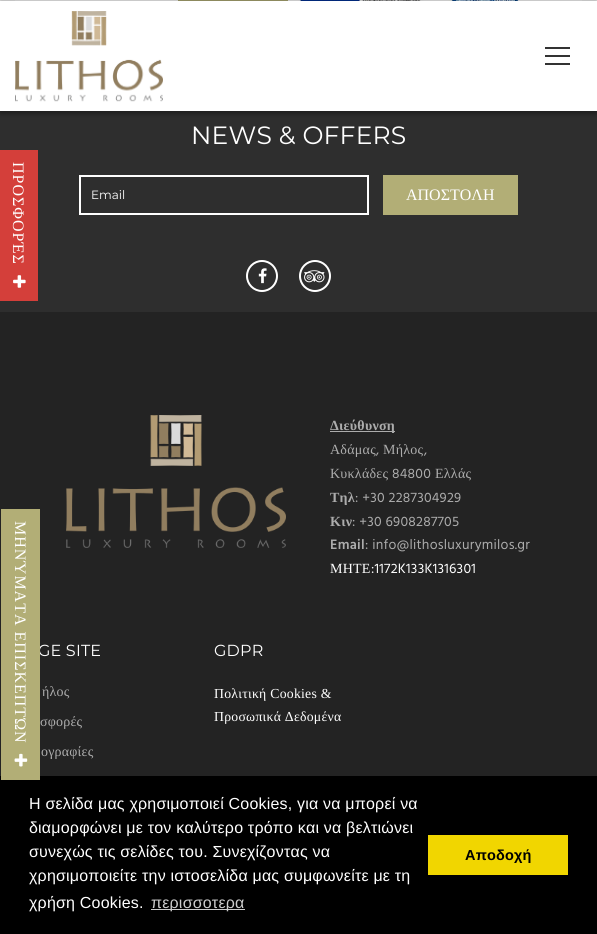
import math
import cairo

surface = cairo.ImageSurface(cairo.FORMAT_RGB24, 597, 934)
ctx = cairo.Context(surface)
options = cairo.FontOptions()
options.set_hint_metrics(cairo.HINT_METRICS_OFF)
options.set_hint_style(cairo.HINT_STYLE_NONE)
ctx.set_font_options(options)
ctx.set_miter_limit(4)


def spaced_text(x, y, s, letter, word):
    ctx.move_to(x, y)
    for ch in s:
        ctx.show_text(ch)
        ctx.rel_move_to(letter + word * (ch == ' '), 0)


def round_rect(x, y, w, h, r):
    ctx.new_sub_path()
    for i, (u, v) in enumerate([(x + w - r, y + h - r), (x + r, y + h - r), (x + r, y + r), (x + w - r, y + r)]):
        ctx.arc(u, v, r, i * math.pi / 2, (i + 1) * math.pi / 2)
    ctx.close_path()


def shadow(x, y, w, h, r, blur, alpha):
    ctx.push_group_with_content(cairo.CONTENT_ALPHA)
    ctx.set_operator(cairo.OPERATOR_SOURCE)
    for i in range(15, -16, -2):
        e = blur * i / 6
        if min(w, h) + 2 * e > 0:
            ctx.set_source_rgba(0, 0, 0, alpha * math.erfc((i - 1) / 8.5) / 2)
            round_rect(x - e, y - e, w + 2 * e, h + 2 * e, max(0, min(r + e + blur * .6, min(w, h) / 2 + e)))
            ctx.fill()
    ctx.mask(ctx.pop_group())


def picture(path, x, y, w, h):
    ctx.save()
    ctx.set_source_surface(cairo.ImageSurface.create_from_png(path), x, y)
    ctx.rectangle(x, y, w, h)
    ctx.fill()
    ctx.restore()


ctx.set_source_rgb(0.969, 0.969, 0.969)
ctx.paint()
ctx.set_source_rgb(0.18, 0.18, 0.18)
ctx.rectangle(0, 111, 597, 201)
ctx.fill()
ctx.set_source_rgb(0.831, 0.247, 0.227)
ctx.rectangle(0, 150, 38, 151)
ctx.fill()
ctx.select_font_face("Liberation Serif")
ctx.set_font_size(16)
ctx.set_source_rgb(1, 1, 1)
ctx.save()
ctx.translate(13, 162)
ctx.rotate(90 * math.pi / 180)
spaced_text(0, 0, "ΠΡΟΣΦΟΡΈΣ", 1, 0)
ctx.restore()
picture("img1.png", 13, 275, 13, 13)
ctx.rectangle(15, 0, 567, 1)
ctx.fill()
ctx.set_source_rgb(0.698, 0.682, 0.463)
ctx.rectangle(178, 0, 110, 1)
ctx.fill()
picture("img3.png", 298, 0, 222, 1)
ctx.set_source_rgb(0, 0, 0)
shadow(0, 2, 597, 110, 0, 4, 0.58)
ctx.set_source_rgb(1, 1, 1)
ctx.rectangle(0, 1, 597, 110)
ctx.fill()
picture("img2.png", 15, 11, 148, 91)
ctx.set_source_rgb(0.2, 0.2, 0.2)
ctx.rectangle(545, 55, 25, 2)
ctx.fill()
ctx.rectangle(545, 47, 25, 2)
ctx.fill()
ctx.rectangle(545, 63, 25, 2)
ctx.fill()
ctx.set_source_rgb(0.137, 0.137, 0.137)
ctx.rectangle(0, 312, 597, 464)
ctx.fill()
ctx.select_font_face("Montserrat")
ctx.set_font_size(25)
ctx.set_source_rgb(1, 1, 1)
spaced_text(191, 144, "NEWS & OFFERS", 0.2, 0)
ctx.rectangle(80, 176, 288, 38)
ctx.stroke()
ctx.set_font_size(12)
ctx.move_to(91, 199)
ctx.show_text("Email")
ctx.set_source_rgb(0.698, 0.682, 0.463)
ctx.rectangle(383, 175, 135, 40)
ctx.fill()
ctx.select_font_face("Liberation Serif")
ctx.set_font_size(16)
ctx.set_source_rgb(1, 1, 1)
ctx.move_to(406, 200)
ctx.show_text("ΑΠΟΣΤΟΛΗ")
ctx.new_path()
ctx.arc(262, 276, 15, 0, 2 * math.pi)
ctx.stroke()
picture("img4.png", 258, 268, 9, 16)
ctx.arc(315, 276, 15, 0, 2 * math.pi)
ctx.stroke()
picture("img5.png", 304, 270, 21, 13)
picture("img6.png", 66, 415, 220, 133)
ctx.set_source_rgb(0.675, 0.675, 0.675)
ctx.rectangle(330, 431, 65, 1)
ctx.fill()
ctx.select_font_face("Liberation Serif", cairo.FONT_SLANT_NORMAL, cairo.FONT_WEIGHT_BOLD)
ctx.set_font_size(14)
spaced_text(330, 430, "Διεύθυνση", 0.25, 0)
ctx.select_font_face("Liberation Serif")
spaced_text(330, 454, "Αδάμας", 0.25, 0)
ctx.select_font_face("Hind")
spaced_text(376, 454, ",", 0.25, 0)
ctx.select_font_face("Liberation Serif")
spaced_text(383, 454, "Μήλος", 0.25, 0)
ctx.select_font_face("Hind")
spaced_text(424, 454, ",", 0.25, 0)
ctx.select_font_face("Liberation Serif")
spaced_text(330, 478, "Κυκλάδες", 0.25, 0)
ctx.select_font_face("Hind")
spaced_text(392, 478, "84800", 0.25, 0)
ctx.select_font_face("Liberation Serif")
spaced_text(435, 478, "Ελλάς", 0.25, 0)
ctx.select_font_face("Liberation Serif", cairo.FONT_SLANT_NORMAL, cairo.FONT_WEIGHT_BOLD)
spaced_text(330, 502, "Τηλ", 0.25, 0)
ctx.select_font_face("Hind")
spaced_text(355, 502, ": +30 2287304929", 0.25, 0)
ctx.select_font_face("Liberation Serif", cairo.FONT_SLANT_NORMAL, cairo.FONT_WEIGHT_BOLD)
spaced_text(330, 526, "Κιν", 0.25, 0)
ctx.select_font_face("Hind")
spaced_text(352, 526, ": +30 6908287705", 0.25, 0)
ctx.select_font_face("Hind SemiBold")
spaced_text(330, 549, "Email", 0.25, 0)
ctx.select_font_face("Hind")
spaced_text(365, 549, ": info@lithosluxurymilos.gr", 0.25, 0)
ctx.select_font_face("Liberation Serif")
ctx.set_source_rgb(1, 1, 1)
spaced_text(330, 573, "ΜΗΤΕ", 0.25, 0)
ctx.select_font_face("Hind")
spaced_text(371, 573, ":1172K133K1316301", 0.25, 0)
ctx.select_font_face("Montserrat")
ctx.set_font_size(16)
spaced_text(38, 656, "GE SITE", 0.2, 0)
ctx.select_font_face("Liberation Serif")
ctx.set_font_size(14)
ctx.set_source_rgb(0.675, 0.675, 0.675)
spaced_text(42, 696, "ήλος", 0.2, 0)
spaced_text(40, 726, "σφορές", 0.2, 0)
spaced_text(41, 756, "ογραφίες", 0.2, 0)
ctx.select_font_face("Montserrat")
ctx.set_font_size(16)
ctx.set_source_rgb(1, 1, 1)
spaced_text(214, 656, "GDPR", 0.2, 0)
ctx.select_font_face("Liberation Serif")
ctx.set_font_size(13.75)
spaced_text(214, 698, "Πολιτική Cookies &", 0.25, 0)
spaced_text(214, 721, "Προσωπικά Δεδομένα", 0.25, 0)
ctx.set_source_rgb(0, 0, 0)
ctx.rectangle(0, 776, 597, 158)
ctx.fill()
ctx.set_source_rgb(0.698, 0.682, 0.463)
ctx.rectangle(1, 509, 39, 271)
ctx.fill()
ctx.set_font_size(16)
ctx.set_source_rgb(1, 1, 1)
ctx.save()
ctx.translate(15, 521)
ctx.rotate(90 * math.pi / 180)
spaced_text(0, 0, "ΜΗΝΎΜΑΤΑ ΕΠΙΣΚΕΠΤΏΝ", 1, 0)
ctx.restore()
picture("img7.png", 14, 753, 14, 14)
ctx.select_font_face("Liberation Sans")
spaced_text(29, 809, "Η σελίδα μας χρησιμοποιεί Cookies, για να μπορεί να", 0.2, 0)
spaced_text(29, 833, "διαμορφώνει με τον καλύτερο τρόπο και να βελτιώνει", 0.2, 0)
spaced_text(29, 857, "συνεχώς τις σελίδες του. Συνεχίζοντας να", 0.2, 0)
spaced_text(29, 881, "χρησιμοποιείτε την ιστοσελίδα μας συμφωνείτε με τη", 0.2, 0)
spaced_text(29, 908, "χρήση Cookies.", 0.2, 0)
ctx.set_source_rgb(0.8, 0.8, 0.8)
ctx.rectangle(151, 909, 94, 1)
ctx.fill()
spaced_text(151, 908, "περισσοτερα", 0.2, 0)
ctx.set_source_rgb(0.945, 0.839, 0)
ctx.rectangle(428, 835, 140, 40)
ctx.fill()
ctx.select_font_face("Liberation Sans", cairo.FONT_SLANT_NORMAL, cairo.FONT_WEIGHT_BOLD)
ctx.set_font_size(14.5)
ctx.set_source_rgb(0, 0, 0)
spaced_text(465, 860, "Αποδοχή", 0.2, 0)
surface.write_to_png("page.png")
